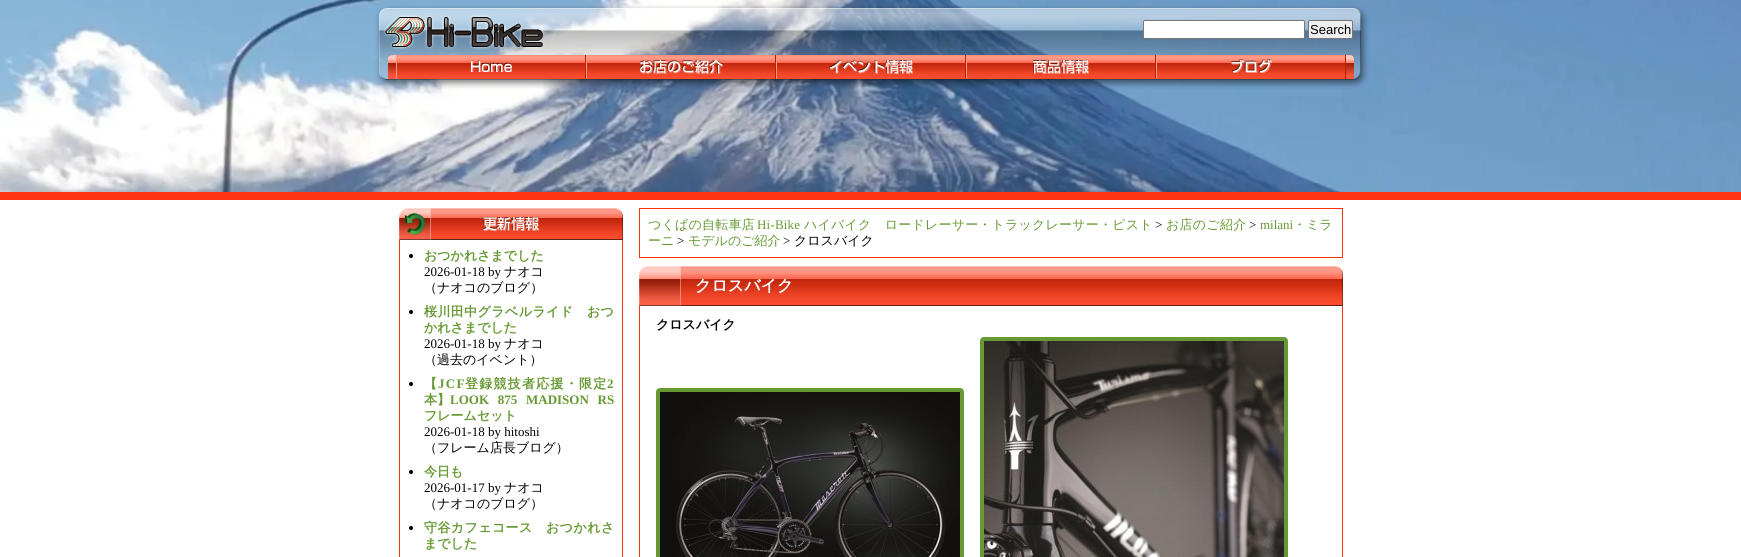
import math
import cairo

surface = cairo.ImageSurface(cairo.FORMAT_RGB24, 1741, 557)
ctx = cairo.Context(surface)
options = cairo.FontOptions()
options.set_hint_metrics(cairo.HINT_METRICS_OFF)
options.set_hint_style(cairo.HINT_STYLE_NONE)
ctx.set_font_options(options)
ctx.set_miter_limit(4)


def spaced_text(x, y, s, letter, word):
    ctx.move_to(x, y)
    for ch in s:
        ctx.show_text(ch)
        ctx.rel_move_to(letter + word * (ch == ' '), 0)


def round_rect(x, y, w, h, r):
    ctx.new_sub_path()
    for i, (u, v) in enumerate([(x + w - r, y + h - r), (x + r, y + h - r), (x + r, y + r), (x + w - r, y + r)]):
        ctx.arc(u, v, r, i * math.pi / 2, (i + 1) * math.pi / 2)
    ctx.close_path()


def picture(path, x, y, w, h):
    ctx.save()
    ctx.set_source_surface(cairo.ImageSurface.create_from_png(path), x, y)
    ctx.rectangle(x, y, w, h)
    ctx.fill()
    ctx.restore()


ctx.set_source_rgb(1, 1, 1)
ctx.paint()
picture("img1.png", 0, 0, 1741, 192)
ctx.set_source_rgb(1, 0.2, 0.067)
ctx.rectangle(0, 192, 1741, 8)
ctx.fill()
picture("img2.png", 375, 5, 994, 84)
picture("img3.png", 383, 15, 162, 35)
ctx.set_source_rgb(1, 1, 1)
round_rect(1143.5, 20.5, 161, 18, 1.5)
ctx.fill_preserve()
ctx.set_source_rgb(0.463, 0.463, 0.463)
ctx.set_line_width(1)
ctx.stroke()
ctx.set_source_rgb(0.937, 0.937, 0.937)
round_rect(1308.5, 20.5, 44, 18, 1.5)
ctx.fill_preserve()
ctx.set_source_rgb(0.463, 0.463, 0.463)
ctx.stroke()
ctx.select_font_face("Liberation Sans")
ctx.set_font_size(13)
ctx.set_source_rgb(0, 0, 0)
ctx.move_to(1310, 34)
ctx.show_text("Search")
picture("img4.png", 388, 55, 8, 24)
picture("img5.png", 1346, 55, 8, 24)
picture("img6.png", 397, 55, 188, 24)
ctx.set_source_rgb(0.733, 0.133, 0)
ctx.rectangle(585, 55, 1, 24)
ctx.fill()
ctx.set_source_rgb(1, 0.6, 0.533)
ctx.rectangle(396, 55, 1, 24)
ctx.fill()
picture("img7.png", 587, 55, 188, 24)
ctx.set_source_rgb(0.733, 0.133, 0)
ctx.rectangle(775, 55, 1, 24)
ctx.fill()
ctx.set_source_rgb(1, 0.6, 0.533)
ctx.rectangle(586, 55, 1, 24)
ctx.fill()
picture("img8.png", 777, 55, 188, 24)
ctx.set_source_rgb(0.733, 0.133, 0)
ctx.rectangle(965, 55, 1, 24)
ctx.fill()
ctx.set_source_rgb(1, 0.6, 0.533)
ctx.rectangle(776, 55, 1, 24)
ctx.fill()
picture("img9.png", 967, 55, 188, 24)
ctx.set_source_rgb(0.733, 0.133, 0)
ctx.rectangle(1155, 55, 1, 24)
ctx.fill()
ctx.set_source_rgb(1, 0.6, 0.533)
ctx.rectangle(966, 55, 1, 24)
ctx.fill()
picture("img10.png", 1157, 55, 188, 24)
ctx.set_source_rgb(0.733, 0.133, 0)
ctx.rectangle(1345, 55, 1, 24)
ctx.fill()
ctx.set_source_rgb(1, 0.6, 0.533)
ctx.rectangle(1156, 55, 1, 24)
ctx.fill()
picture("img11.png", 399, 208, 224, 32)
ctx.set_source_rgb(1, 0.2, 0.067)
ctx.rectangle(622, 240, 1, 317)
ctx.fill()
ctx.rectangle(399, 240, 1, 317)
ctx.fill()
ctx.set_source_rgb(0, 0, 0)
ctx.arc(411, 256, 2, 0, 2 * math.pi)
ctx.fill()
ctx.select_font_face("WenQuanYi Zen Hei", cairo.FONT_SLANT_NORMAL, cairo.FONT_WEIGHT_BOLD)
ctx.set_source_rgb(0.4, 0.6, 0.2)
ctx.move_to(424, 260)
ctx.show_text("おつかれさまでした")
ctx.select_font_face("Liberation Serif")
ctx.set_source_rgb(0, 0, 0)
ctx.move_to(424, 276)
ctx.show_text("2026-01-18 by")
ctx.select_font_face("WenQuanYi Zen Hei Medium")
ctx.move_to(504, 276)
ctx.show_text("ナオコ")
ctx.move_to(424, 292)
ctx.show_text("（ナオコのブログ）")
ctx.new_path()
ctx.arc(411, 312, 2, 0, 2 * math.pi)
ctx.fill()
ctx.select_font_face("WenQuanYi Zen Hei", cairo.FONT_SLANT_NORMAL, cairo.FONT_WEIGHT_BOLD)
ctx.set_source_rgb(0.4, 0.6, 0.2)
spaced_text(424, 316, "桜川田中グラベルライド　おつ", 0.4, 0)
ctx.move_to(424, 332)
ctx.show_text("かれさまでした")
ctx.select_font_face("Liberation Serif")
ctx.set_source_rgb(0, 0, 0)
ctx.move_to(424, 348)
ctx.show_text("2026-01-18 by")
ctx.select_font_face("WenQuanYi Zen Hei Medium")
ctx.move_to(504, 348)
ctx.show_text("ナオコ")
ctx.move_to(424, 364)
ctx.show_text("（過去のイベント）")
ctx.new_path()
ctx.arc(411, 384, 2, 0, 2 * math.pi)
ctx.fill()
ctx.select_font_face("WenQuanYi Zen Hei", cairo.FONT_SLANT_NORMAL, cairo.FONT_WEIGHT_BOLD)
ctx.set_source_rgb(0.4, 0.6, 0.2)
spaced_text(424, 388, "【", 1.25, 0)
ctx.select_font_face("Liberation Serif", cairo.FONT_SLANT_NORMAL, cairo.FONT_WEIGHT_BOLD)
spaced_text(438, 388, "JCF", 1.25, 0)
ctx.select_font_face("WenQuanYi Zen Hei", cairo.FONT_SLANT_NORMAL, cairo.FONT_WEIGHT_BOLD)
spaced_text(465, 388, "登録競技者応援・限定", 1.25, 0)
ctx.select_font_face("Liberation Serif", cairo.FONT_SLANT_NORMAL, cairo.FONT_WEIGHT_BOLD)
spaced_text(607, 388, "2", 1.25, 0)
ctx.select_font_face("WenQuanYi Zen Hei", cairo.FONT_SLANT_NORMAL, cairo.FONT_WEIGHT_BOLD)
ctx.move_to(424, 404)
ctx.show_text("本】")
ctx.select_font_face("Liberation Serif", cairo.FONT_SLANT_NORMAL, cairo.FONT_WEIGHT_BOLD)
spaced_text(450, 404, "LOOK 875 MADISON RS", 0, 5.5)
ctx.select_font_face("WenQuanYi Zen Hei", cairo.FONT_SLANT_NORMAL, cairo.FONT_WEIGHT_BOLD)
ctx.move_to(424, 420)
ctx.show_text("フレームセット")
ctx.select_font_face("Liberation Serif")
ctx.set_source_rgb(0, 0, 0)
ctx.move_to(424, 436)
ctx.show_text("2026-01-18 by hitoshi")
ctx.select_font_face("WenQuanYi Zen Hei Medium")
ctx.move_to(424, 452)
ctx.show_text("（フレーム店長ブログ）")
ctx.new_path()
ctx.arc(411, 472, 2, 0, 2 * math.pi)
ctx.fill()
ctx.select_font_face("WenQuanYi Zen Hei", cairo.FONT_SLANT_NORMAL, cairo.FONT_WEIGHT_BOLD)
ctx.set_source_rgb(0.4, 0.6, 0.2)
ctx.move_to(424, 476)
ctx.show_text("今日も")
ctx.select_font_face("Liberation Serif")
ctx.set_source_rgb(0, 0, 0)
ctx.move_to(424, 492)
ctx.show_text("2026-01-17 by")
ctx.select_font_face("WenQuanYi Zen Hei Medium")
ctx.move_to(504, 492)
ctx.show_text("ナオコ")
ctx.move_to(424, 508)
ctx.show_text("（ナオコのブログ）")
ctx.new_path()
ctx.arc(411, 528, 2, 0, 2 * math.pi)
ctx.fill()
ctx.select_font_face("WenQuanYi Zen Hei", cairo.FONT_SLANT_NORMAL, cairo.FONT_WEIGHT_BOLD)
ctx.set_source_rgb(0.4, 0.6, 0.2)
spaced_text(424, 532, "守谷カフェコース　おつかれさ", 0.4, 0)
ctx.move_to(424, 548)
ctx.show_text("までした")
ctx.rectangle(639.5, 208.5, 703, 49)
ctx.set_source_rgb(1, 0.2, 0.067)
ctx.stroke()
ctx.select_font_face("WenQuanYi Zen Hei Medium")
ctx.set_source_rgb(0.4, 0.6, 0.2)
spaced_text(648, 229, "つくばの自転車店", 0.2, 0)
ctx.select_font_face("Liberation Serif")
spaced_text(757, 229, "Hi-Bike", 0.2, 0)
ctx.select_font_face("WenQuanYi Zen Hei Medium")
spaced_text(804, 229, "ハイバイク　ロードレーサー・トラックレーサー・ピスト", 0.2, 0)
ctx.select_font_face("Liberation Serif")
ctx.set_source_rgb(0, 0, 0)
ctx.move_to(1155, 229)
ctx.show_text(">")
ctx.select_font_face("WenQuanYi Zen Hei Medium")
ctx.set_source_rgb(0.4, 0.6, 0.2)
spaced_text(1166, 229, "お店のご紹介", 0.25, 0)
ctx.select_font_face("Liberation Serif")
ctx.set_source_rgb(0, 0, 0)
ctx.move_to(1249, 229)
ctx.show_text(">")
ctx.set_source_rgb(0.4, 0.6, 0.2)
ctx.move_to(1260, 229)
ctx.show_text("milani")
ctx.select_font_face("WenQuanYi Zen Hei Medium")
ctx.move_to(1293, 229)
ctx.show_text("・ミラ")
ctx.move_to(648, 245)
ctx.show_text("ーニ")
ctx.select_font_face("Liberation Serif")
ctx.set_source_rgb(0, 0, 0)
ctx.move_to(677, 245)
ctx.show_text(">")
ctx.select_font_face("WenQuanYi Zen Hei Medium")
ctx.set_source_rgb(0.4, 0.6, 0.2)
ctx.move_to(688, 245)
ctx.show_text("モデルのご紹介")
ctx.select_font_face("Liberation Serif")
ctx.set_source_rgb(0, 0, 0)
ctx.move_to(783, 245)
ctx.show_text(">")
ctx.select_font_face("WenQuanYi Zen Hei Medium")
ctx.move_to(794, 245)
ctx.show_text("クロスバイク")
picture("img12.png", 639, 266, 704, 40)
ctx.select_font_face("WenQuanYi Zen Hei", cairo.FONT_SLANT_NORMAL, cairo.FONT_WEIGHT_BOLD)
ctx.set_font_size(16)
ctx.set_source_rgb(1, 1, 1)
ctx.move_to(695, 291)
ctx.show_text("クロスバイク")
ctx.set_source_rgb(1, 0.2, 0.067)
ctx.rectangle(1342, 306, 1, 251)
ctx.fill()
ctx.rectangle(639, 306, 1, 251)
ctx.fill()
ctx.set_font_size(13)
ctx.set_source_rgb(0, 0, 0)
ctx.move_to(656, 329)
ctx.show_text("クロスバイク")
round_rect(982, 339, 304, 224, 2)
ctx.set_source_rgb(0.4, 0.6, 0.2)
ctx.set_line_width(4)
ctx.stroke()
round_rect(658, 390, 304, 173, 2)
ctx.stroke()
picture("img13.png", 984, 341, 300, 216)
picture("img14.png", 660, 392, 300, 165)
surface.write_to_png("page.png")
